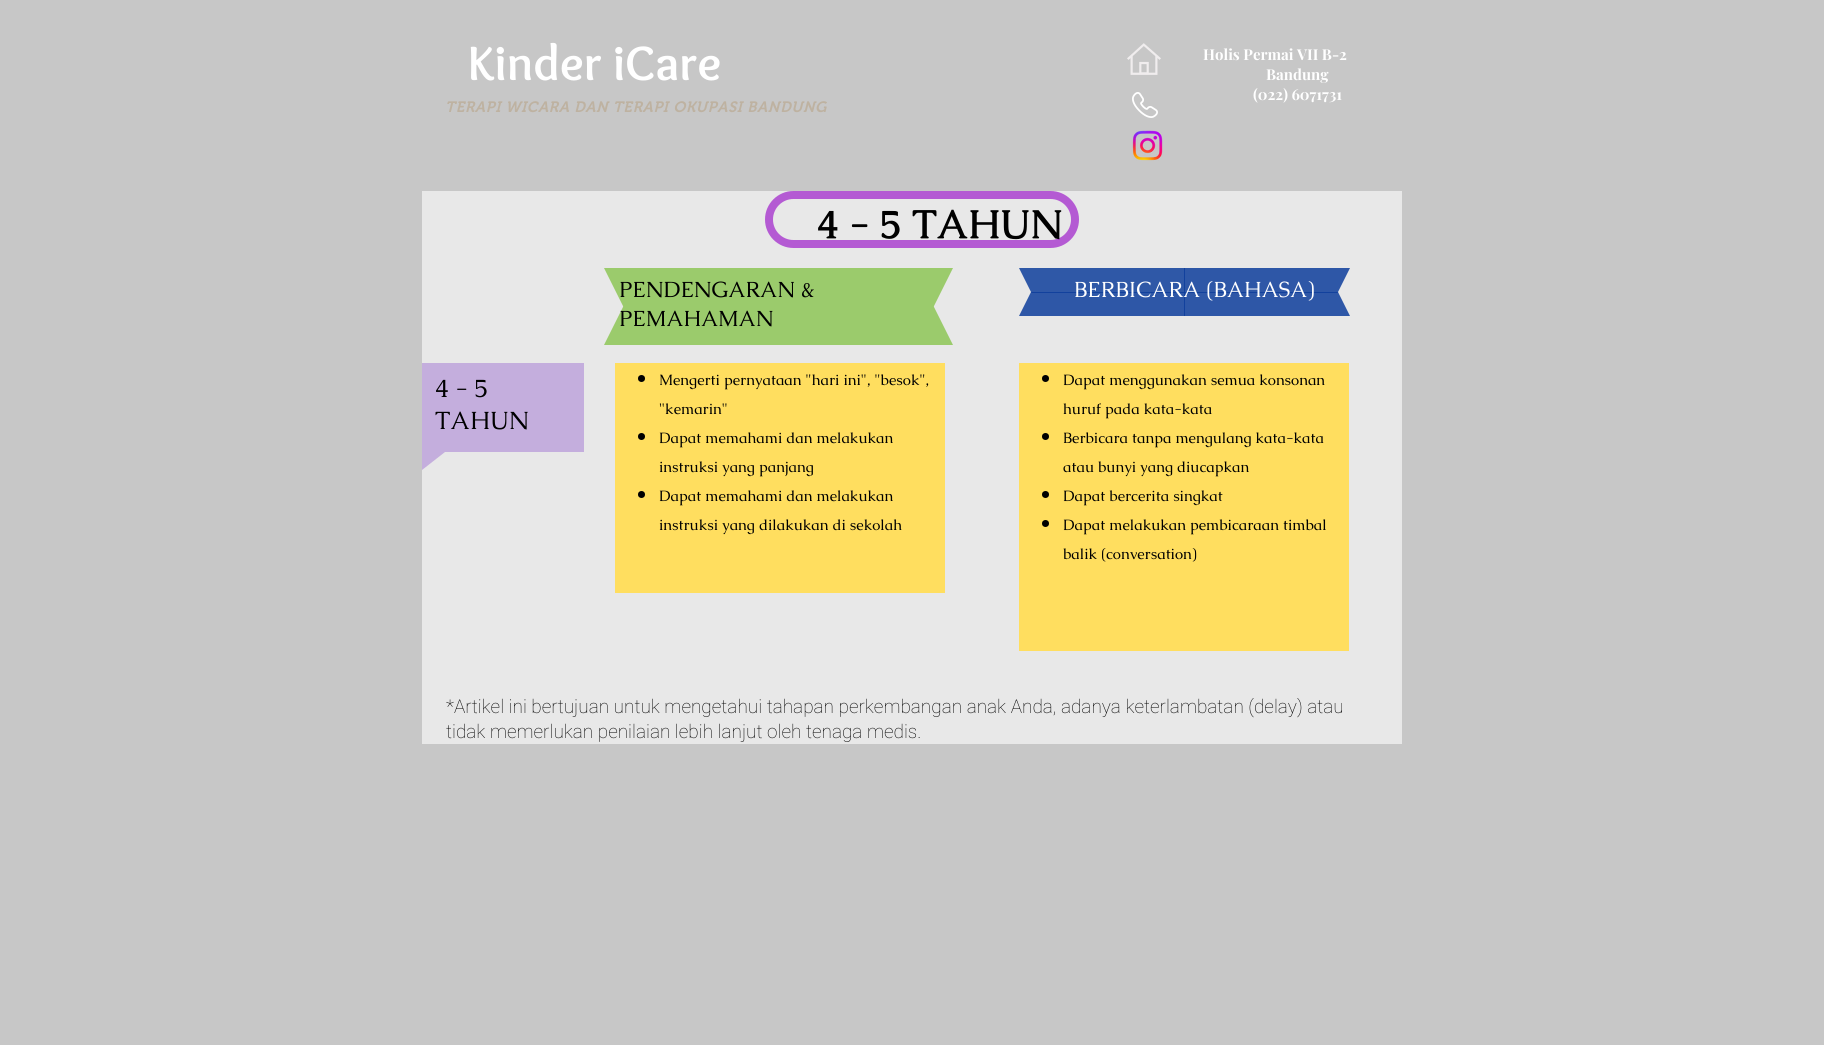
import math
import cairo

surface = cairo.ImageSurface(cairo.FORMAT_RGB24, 1824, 1045)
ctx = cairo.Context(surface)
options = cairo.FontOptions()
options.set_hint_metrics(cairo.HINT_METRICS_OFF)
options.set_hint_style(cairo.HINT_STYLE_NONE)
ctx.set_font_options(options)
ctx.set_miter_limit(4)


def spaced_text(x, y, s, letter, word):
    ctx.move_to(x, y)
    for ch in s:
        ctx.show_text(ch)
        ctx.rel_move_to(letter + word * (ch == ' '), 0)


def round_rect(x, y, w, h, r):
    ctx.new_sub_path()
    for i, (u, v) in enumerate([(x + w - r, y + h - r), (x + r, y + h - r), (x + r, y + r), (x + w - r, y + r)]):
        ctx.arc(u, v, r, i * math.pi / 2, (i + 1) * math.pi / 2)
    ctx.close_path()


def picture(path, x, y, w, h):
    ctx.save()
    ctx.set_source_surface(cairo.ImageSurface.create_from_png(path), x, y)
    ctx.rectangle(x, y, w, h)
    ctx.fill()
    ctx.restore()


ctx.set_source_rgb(0.78, 0.78, 0.78)
ctx.paint()
ctx.select_font_face("Overlock", cairo.FONT_SLANT_NORMAL, cairo.FONT_WEIGHT_BOLD)
ctx.set_font_size(50)
ctx.set_source_rgb(1, 1, 1)
ctx.move_to(468, 80)
ctx.show_text("Kinder iCare")
picture("img1.png", 1127, 43, 34, 32)
ctx.select_font_face("Playfair Display", cairo.FONT_SLANT_NORMAL, cairo.FONT_WEIGHT_BOLD)
ctx.set_font_size(15)
ctx.move_to(1203, 60)
ctx.show_text("Holis Permai VII B-2")
ctx.move_to(1266, 80)
ctx.show_text("Bandung")
ctx.move_to(1253, 100)
ctx.show_text("(022) 6071731")
ctx.select_font_face("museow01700 SemiBold", cairo.FONT_SLANT_ITALIC)
ctx.set_source_rgb(0.745, 0.698, 0.631)
spaced_text(445, 112, "TERAPI WICARA DAN TERAPI OKUPASI BANDUNG", 0.6, 0)
picture("img2.png", 1132, 92, 26, 26)
picture("img3.png", 1132, 130, 31, 31)
ctx.set_source_rgb(0.91, 0.91, 0.91)
ctx.rectangle(422, 191, 980, 553)
ctx.fill()
round_rect(769, 195, 306, 49, 24.5)
ctx.set_source_rgb(0.706, 0.353, 0.827)
ctx.set_line_width(8)
ctx.stroke()
ctx.select_font_face("Caudex", cairo.FONT_SLANT_NORMAL, cairo.FONT_WEIGHT_BOLD)
ctx.set_font_size(40)
ctx.set_source_rgb(0, 0, 0)
ctx.move_to(817, 238)
ctx.show_text("4 - 5 TAHUN")
ctx.save()
ctx.rectangle(604, 268, 175, 39)
ctx.clip()
ctx.set_source_rgb(0.608, 0.796, 0.424)
ctx.new_path()
ctx.move_to(604, 268)
ctx.line_to(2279, 268)
ctx.line_to(1279, 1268)
ctx.line_to(1104, 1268)
ctx.close_path()
ctx.fill()
ctx.restore()
ctx.save()
ctx.rectangle(778, 268, 175, 39)
ctx.clip()
ctx.set_source_rgb(0.608, 0.796, 0.424)
ctx.new_path()
ctx.move_to(-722, 268)
ctx.line_to(953, 268)
ctx.line_to(453, 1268)
ctx.line_to(278, 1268)
ctx.close_path()
ctx.fill()
ctx.restore()
ctx.select_font_face("Caudex")
ctx.set_font_size(22)
ctx.move_to(619, 297)
ctx.show_text("PENDENGARAN &")
ctx.save()
ctx.rectangle(604, 306, 175, 39)
ctx.clip()
ctx.set_source_rgb(0.608, 0.796, 0.424)
ctx.new_path()
ctx.move_to(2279, 345)
ctx.line_to(604, 345)
ctx.line_to(1104, -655)
ctx.line_to(1279, -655)
ctx.close_path()
ctx.fill()
ctx.restore()
ctx.move_to(619, 326)
ctx.show_text("PEMAHAMAN")
ctx.save()
ctx.rectangle(778, 306, 175, 39)
ctx.clip()
ctx.set_source_rgb(0.608, 0.796, 0.424)
ctx.new_path()
ctx.move_to(953, 345)
ctx.line_to(-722, 345)
ctx.line_to(278, -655)
ctx.line_to(453, -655)
ctx.close_path()
ctx.fill()
ctx.restore()
ctx.save()
ctx.rectangle(1019, 268, 166, 25)
ctx.clip()
ctx.set_source_rgb(0.184, 0.345, 0.655)
ctx.new_path()
ctx.move_to(1019, 268)
ctx.line_to(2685, 268)
ctx.line_to(1685, 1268)
ctx.line_to(1519, 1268)
ctx.close_path()
ctx.fill()
ctx.restore()
ctx.save()
ctx.rectangle(1184, 268, 166, 25)
ctx.clip()
ctx.set_source_rgba(0.055, 0.243, 0.608, 0.85)
ctx.new_path()
ctx.move_to(-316, 268)
ctx.line_to(1350, 268)
ctx.line_to(850, 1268)
ctx.line_to(684, 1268)
ctx.close_path()
ctx.fill()
ctx.restore()
ctx.save()
ctx.rectangle(1019, 292, 166, 24)
ctx.clip()
ctx.set_source_rgba(0.055, 0.243, 0.608, 0.85)
ctx.new_path()
ctx.move_to(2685, 316)
ctx.line_to(1019, 316)
ctx.line_to(1519, -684)
ctx.line_to(1685, -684)
ctx.close_path()
ctx.fill()
ctx.restore()
ctx.save()
ctx.rectangle(1184, 292, 166, 24)
ctx.clip()
ctx.set_source_rgba(0.055, 0.243, 0.608, 0.85)
ctx.new_path()
ctx.move_to(1350, 316)
ctx.line_to(-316, 316)
ctx.line_to(684, -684)
ctx.line_to(850, -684)
ctx.close_path()
ctx.fill()
ctx.restore()
ctx.set_source_rgb(1, 1, 1)
ctx.move_to(1074, 297)
ctx.show_text("BERBICARA (BAHASA)")
ctx.set_source_rgb(0.769, 0.682, 0.867)
ctx.rectangle(422, 363, 162, 89)
ctx.fill()
ctx.set_font_size(25)
ctx.set_source_rgb(0, 0, 0)
ctx.move_to(435, 397)
ctx.show_text("4 - 5")
ctx.move_to(435, 429)
ctx.show_text("TAHUN")
ctx.set_source_rgb(0.769, 0.682, 0.867)
ctx.new_path()
ctx.move_to(422, 452)
ctx.line_to(445, 452)
ctx.line_to(422, 470)
ctx.close_path()
ctx.fill()
ctx.set_source_rgb(1, 0.871, 0.373)
ctx.rectangle(615, 363, 330, 230)
ctx.fill()
ctx.set_source_rgb(0, 0, 0)
ctx.arc(641.5, 378.5, 3.5, 0, 2 * math.pi)
ctx.fill()
ctx.set_font_size(15)
ctx.move_to(659, 385)
ctx.show_text("Mengerti pernyataan \"hari ini\", \"besok\",")
ctx.move_to(659, 414)
ctx.show_text("\"kemarin\"")
ctx.new_path()
ctx.arc(641.5, 436.5, 3.5, 0, 2 * math.pi)
ctx.fill()
ctx.move_to(659, 443)
ctx.show_text("Dapat memahami dan melakukan")
ctx.move_to(659, 472)
ctx.show_text("instruksi yang panjang")
ctx.new_path()
ctx.arc(641.5, 494.5, 3.5, 0, 2 * math.pi)
ctx.fill()
ctx.move_to(659, 501)
ctx.show_text("Dapat memahami dan melakukan")
ctx.move_to(659, 530)
ctx.show_text("instruksi yang dilakukan di sekolah")
ctx.set_source_rgb(1, 0.871, 0.373)
ctx.rectangle(1019, 363, 330, 288)
ctx.fill()
ctx.set_source_rgb(0, 0, 0)
ctx.arc(1045.5, 378.5, 3.5, 0, 2 * math.pi)
ctx.fill()
ctx.move_to(1063, 385)
ctx.show_text("Dapat menggunakan semua konsonan")
ctx.move_to(1063, 414)
ctx.show_text("huruf pada kata-kata")
ctx.new_path()
ctx.arc(1045.5, 436.5, 3.5, 0, 2 * math.pi)
ctx.fill()
ctx.move_to(1063, 443)
ctx.show_text("Berbicara tanpa mengulang kata-kata")
ctx.move_to(1063, 472)
ctx.show_text("atau bunyi yang diucapkan")
ctx.new_path()
ctx.arc(1045.5, 494.5, 3.5, 0, 2 * math.pi)
ctx.fill()
ctx.move_to(1063, 501)
ctx.show_text("Dapat bercerita singkat")
ctx.new_path()
ctx.arc(1045.5, 523.5, 3.5, 0, 2 * math.pi)
ctx.fill()
ctx.move_to(1063, 530)
ctx.show_text("Dapat melakukan pembicaraan timbal")
ctx.move_to(1063, 559)
ctx.show_text("balik (conversation)")
ctx.select_font_face("Roboto Thin")
ctx.set_font_size(19)
ctx.move_to(446, 713)
ctx.show_text("*Artikel ini bertujuan untuk mengetahui tahapan perkembangan anak Anda, adanya keterlambatan (delay) atau")
ctx.move_to(446, 738)
ctx.show_text("tidak memerlukan penilaian lebih lanjut oleh tenaga medis.")
surface.write_to_png("page.png")
